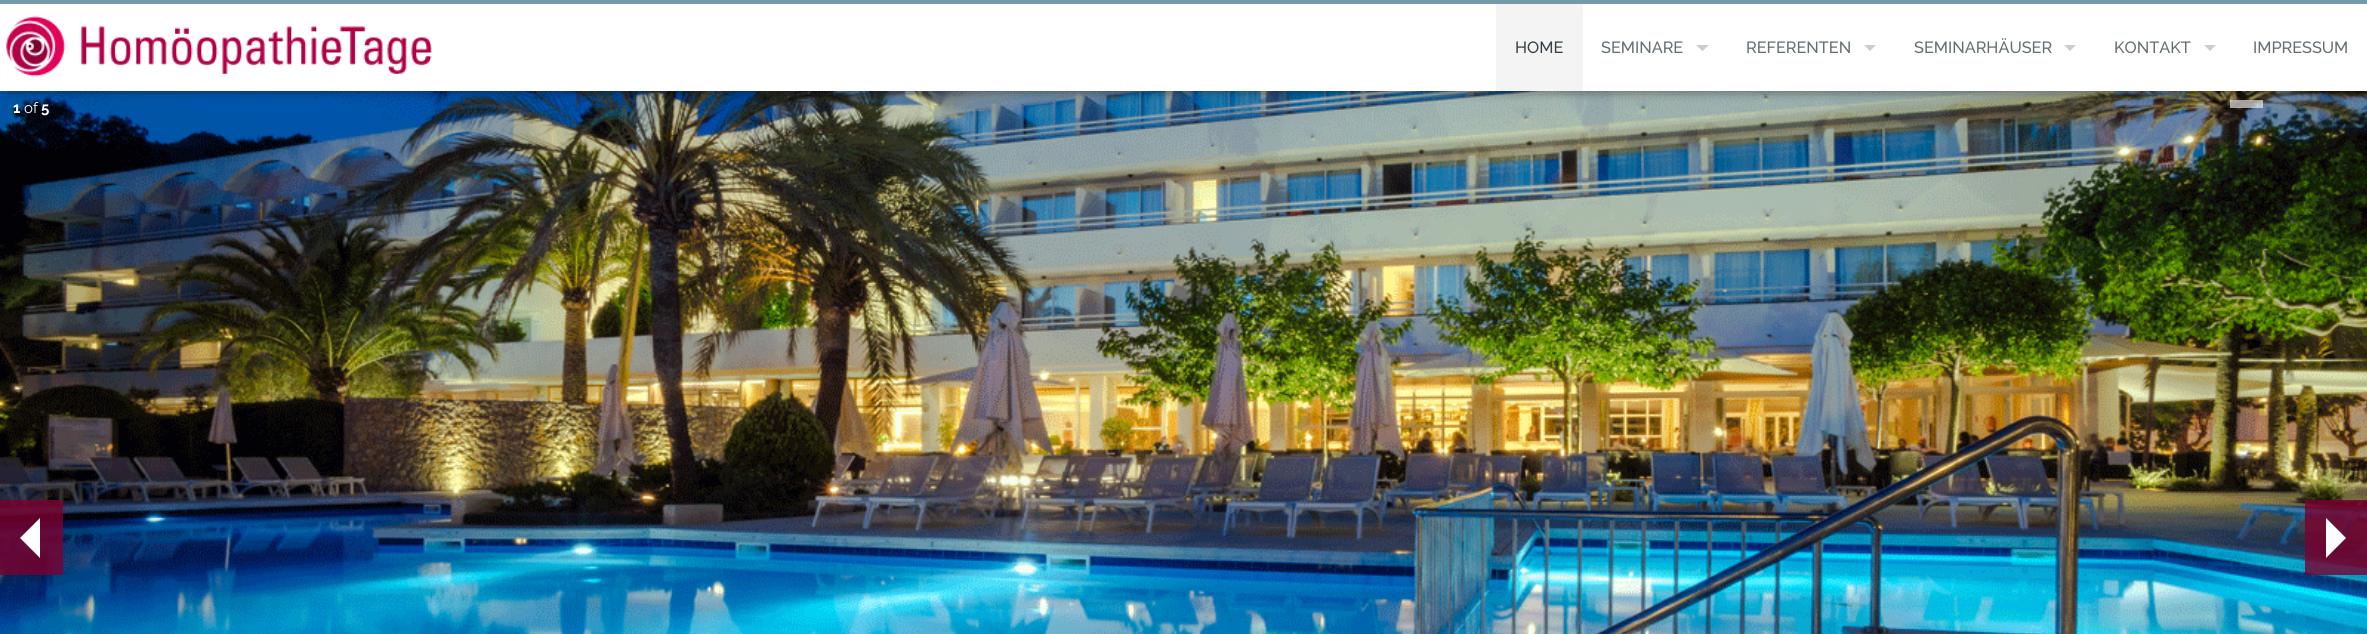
import math
import cairo

surface = cairo.ImageSurface(cairo.FORMAT_RGB24, 2367, 634)
ctx = cairo.Context(surface)
options = cairo.FontOptions()
options.set_hint_metrics(cairo.HINT_METRICS_OFF)
options.set_hint_style(cairo.HINT_STYLE_NONE)
ctx.set_font_options(options)
ctx.set_miter_limit(4)


def round_rect(x, y, w, h, r):
    ctx.new_sub_path()
    for i, (u, v) in enumerate([(x + w - r, y + h - r), (x + r, y + h - r), (x + r, y + r), (x + w - r, y + r)]):
        ctx.arc(u, v, r, i * math.pi / 2, (i + 1) * math.pi / 2)
    ctx.close_path()


def shadow(x, y, w, h, r, blur, alpha):
    ctx.push_group_with_content(cairo.CONTENT_ALPHA)
    ctx.set_operator(cairo.OPERATOR_SOURCE)
    for i in range(15, -16, -2):
        e = blur * i / 6
        if min(w, h) + 2 * e > 0:
            ctx.set_source_rgba(0, 0, 0, alpha * math.erfc((i - 1) / 8.5) / 2)
            round_rect(x - e, y - e, w + 2 * e, h + 2 * e, max(0, min(r + e + blur * .6, min(w, h) / 2 + e)))
            ctx.fill()
    ctx.mask(ctx.pop_group())


def picture(path, x, y, w, h):
    ctx.save()
    ctx.set_source_surface(cairo.ImageSurface.create_from_png(path), x, y)
    ctx.rectangle(x, y, w, h)
    ctx.fill()
    ctx.restore()


ctx.set_source_rgb(1, 1, 1)
ctx.paint()
ctx.set_source_rgb(0.455, 0.6, 0.655)
ctx.rectangle(0, 0, 2367, 4)
ctx.fill()
picture("img2.png", 0, 91, 2367, 543)
ctx.set_source_rgba(1, 1, 1, 0.6)
ctx.rectangle(2230, 100, 33, 8)
ctx.fill()
ctx.set_source_rgb(0, 0, 0)
shadow(8, 21, 2352, 73, 0, 4, 0.3)
ctx.set_source_rgb(1, 1, 1)
ctx.rectangle(1, 14, 2366, 77)
ctx.fill()
picture("img1.png", 6, 16, 426, 61)
ctx.set_source_rgb(0.957, 0.957, 0.957)
ctx.rectangle(1496, 4, 87, 87)
ctx.fill()
ctx.select_font_face("Raleway Medium")
ctx.set_font_size(16.25)
ctx.set_source_rgb(0.216, 0.255, 0.275)
ctx.move_to(1515, 53)
ctx.show_text("HOME")
ctx.set_source_rgb(0.396, 0.431, 0.447)
ctx.move_to(1601, 53)
ctx.show_text("SEMINARE")
ctx.set_source_rgb(0.8, 0.8, 0.8)
ctx.new_path()
ctx.move_to(1696, 45)
ctx.line_to(1709, 45)
ctx.line_to(1702.5, 51)
ctx.close_path()
ctx.fill()
ctx.set_source_rgb(0.396, 0.431, 0.447)
ctx.move_to(1746, 53)
ctx.show_text("REFERENTEN")
ctx.set_source_rgb(0.8, 0.8, 0.8)
ctx.new_path()
ctx.move_to(1864, 45)
ctx.line_to(1876, 45)
ctx.line_to(1870, 51)
ctx.close_path()
ctx.fill()
ctx.set_source_rgb(0.396, 0.431, 0.447)
ctx.move_to(1914, 53)
ctx.show_text("SEMINARHÄUSER")
ctx.set_source_rgb(0.8, 0.8, 0.8)
ctx.new_path()
ctx.move_to(2064, 45)
ctx.line_to(2076, 45)
ctx.line_to(2070, 51)
ctx.close_path()
ctx.fill()
ctx.set_source_rgb(0.396, 0.431, 0.447)
ctx.move_to(2114, 53)
ctx.show_text("KONTAKT")
ctx.set_source_rgb(0.8, 0.8, 0.8)
ctx.new_path()
ctx.move_to(2204, 45)
ctx.line_to(2216, 45)
ctx.line_to(2210, 51)
ctx.close_path()
ctx.fill()
ctx.set_source_rgb(0.396, 0.431, 0.447)
ctx.move_to(2253, 53)
ctx.show_text("IMPRESSUM")
ctx.select_font_face("Raleway", cairo.FONT_SLANT_NORMAL, cairo.FONT_WEIGHT_BOLD)
ctx.set_font_size(15)
ctx.set_source_rgb(1, 1, 1)
ctx.move_to(13, 113)
ctx.show_text("1")
ctx.select_font_face("Raleway")
ctx.move_to(24, 113)
ctx.show_text("of")
ctx.select_font_face("Raleway", cairo.FONT_SLANT_NORMAL, cairo.FONT_WEIGHT_BOLD)
ctx.move_to(41, 113)
ctx.show_text("5")
ctx.set_source_rgba(0.482, 0.004, 0.184, 0.8)
ctx.rectangle(0, 500, 63, 75)
ctx.fill()
ctx.set_source_rgb(1, 1, 1)
ctx.new_path()
ctx.move_to(40, 518)
ctx.line_to(40, 558)
ctx.line_to(20, 538)
ctx.close_path()
ctx.fill()
ctx.set_source_rgba(0.482, 0.004, 0.184, 0.8)
ctx.rectangle(2305, 500, 62, 75)
ctx.fill()
ctx.set_source_rgb(1, 1, 1)
ctx.new_path()
ctx.move_to(2326, 558)
ctx.line_to(2326, 518)
ctx.line_to(2346, 538)
ctx.close_path()
ctx.fill()
surface.write_to_png("page.png")
